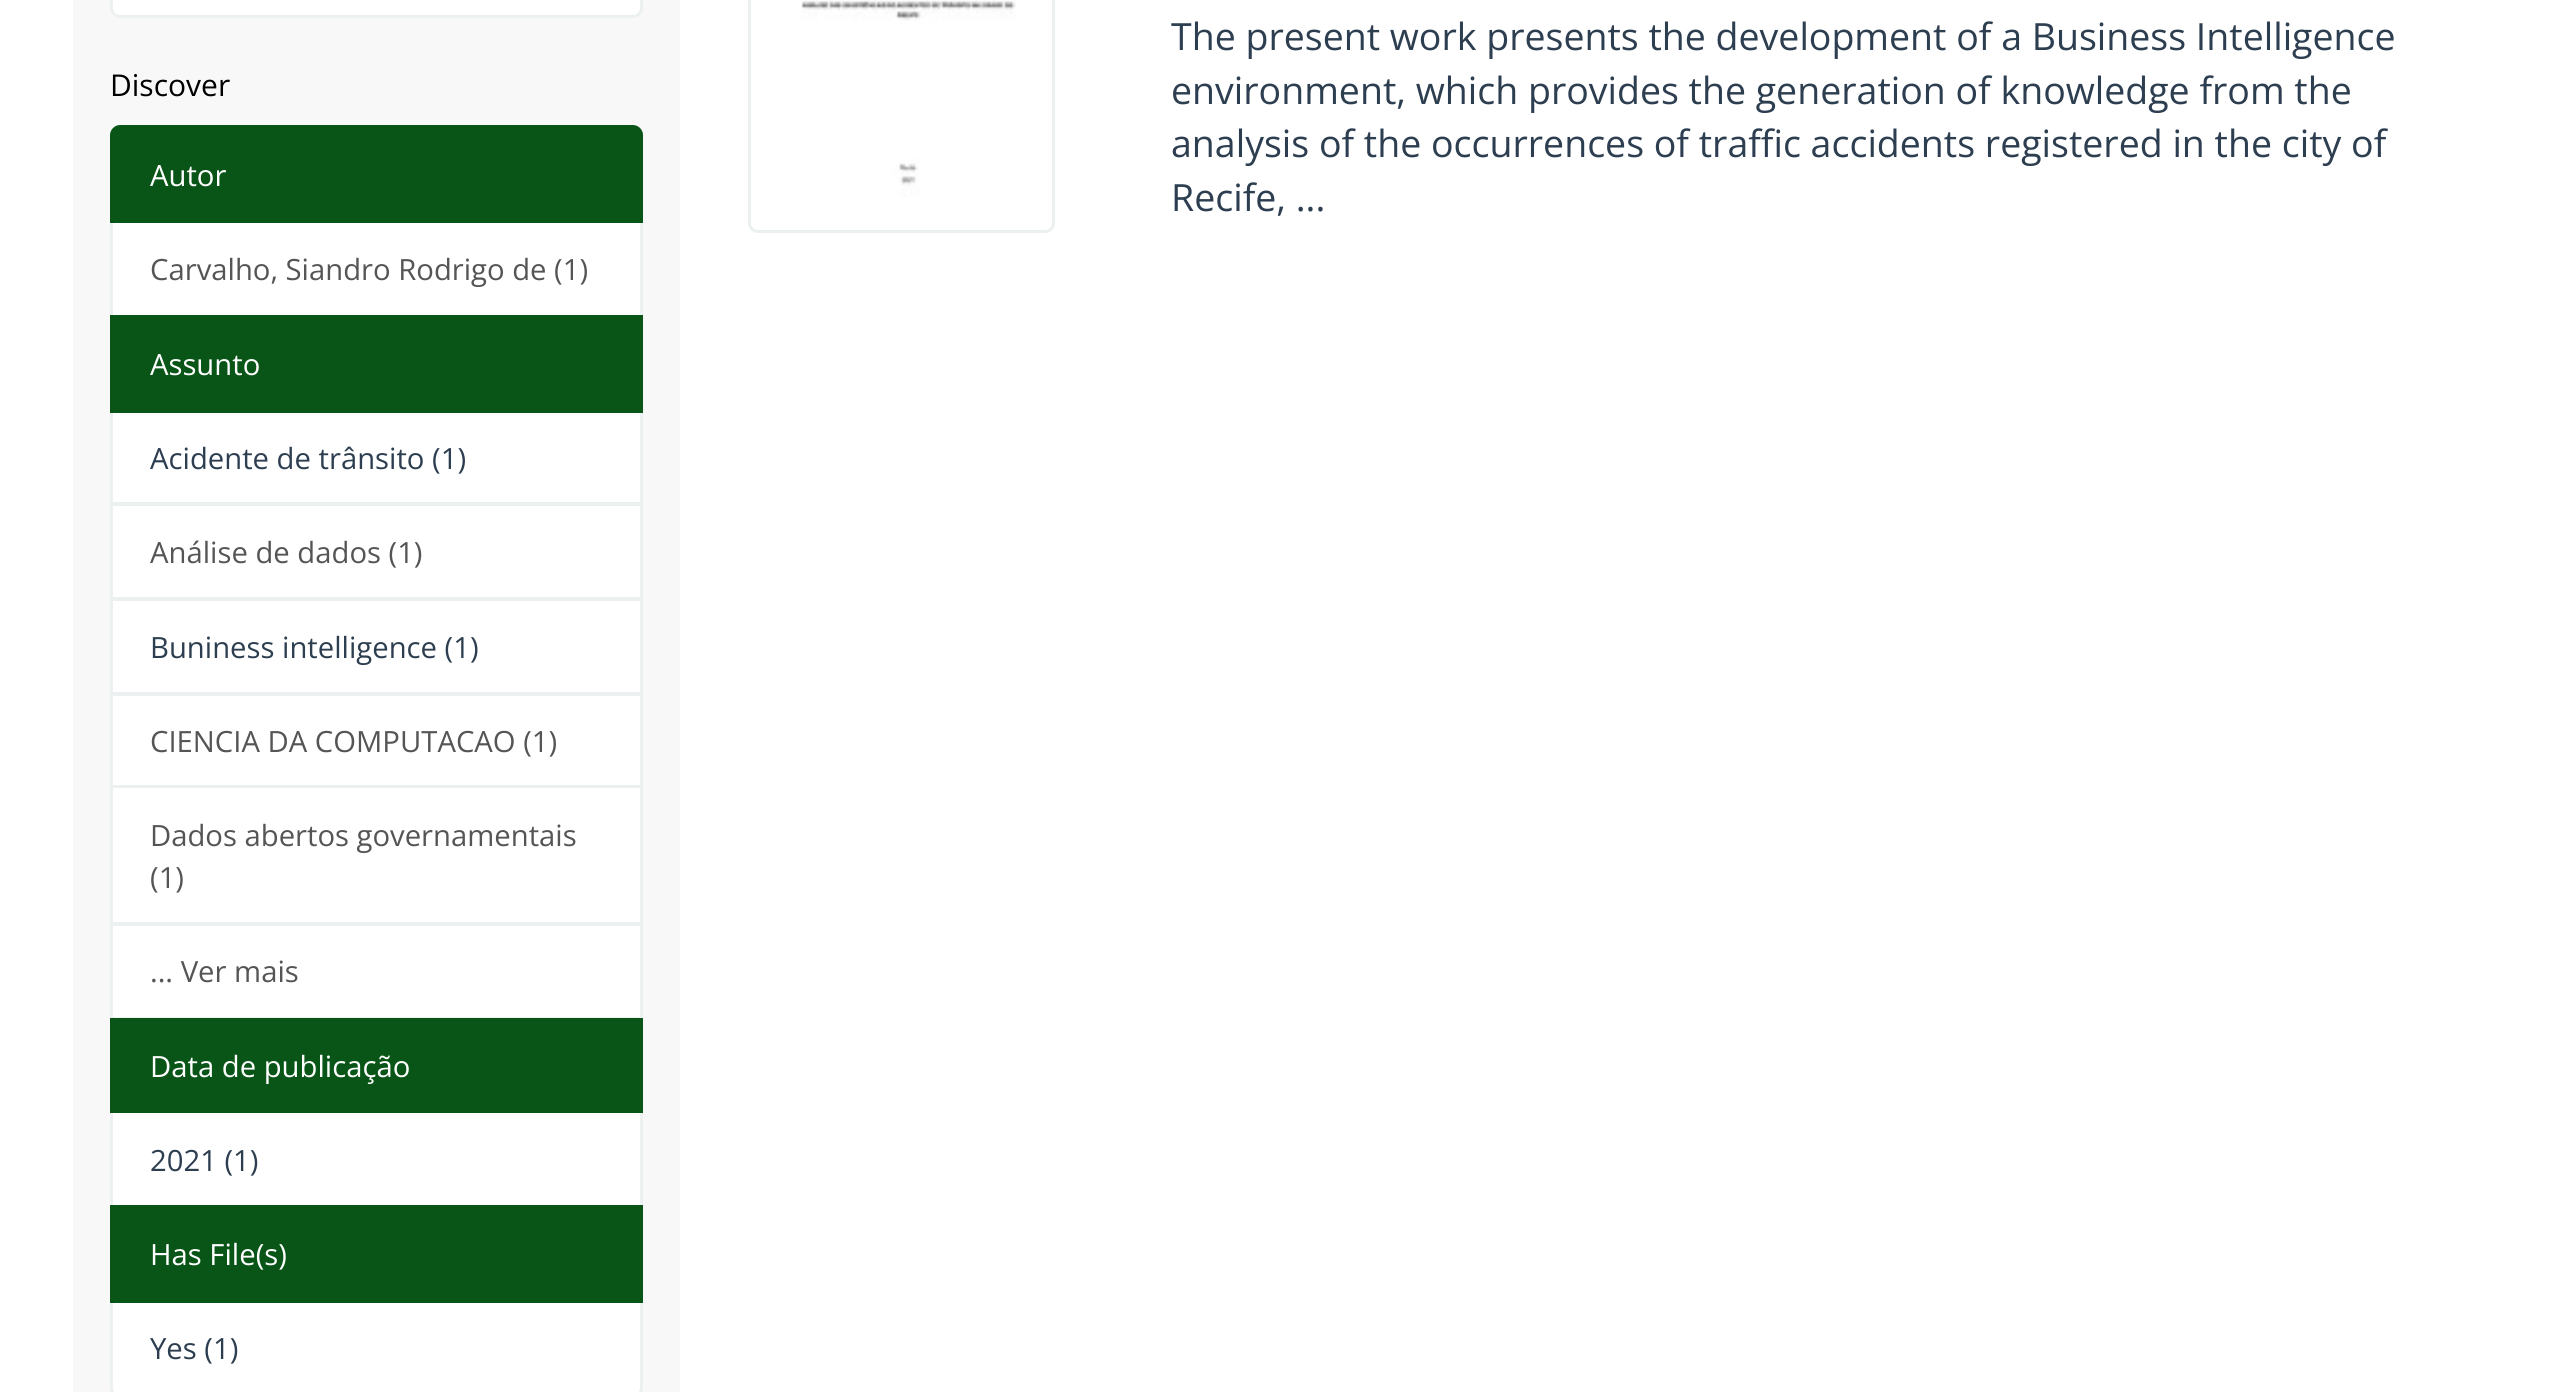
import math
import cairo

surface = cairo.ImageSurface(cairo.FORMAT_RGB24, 2569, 1392)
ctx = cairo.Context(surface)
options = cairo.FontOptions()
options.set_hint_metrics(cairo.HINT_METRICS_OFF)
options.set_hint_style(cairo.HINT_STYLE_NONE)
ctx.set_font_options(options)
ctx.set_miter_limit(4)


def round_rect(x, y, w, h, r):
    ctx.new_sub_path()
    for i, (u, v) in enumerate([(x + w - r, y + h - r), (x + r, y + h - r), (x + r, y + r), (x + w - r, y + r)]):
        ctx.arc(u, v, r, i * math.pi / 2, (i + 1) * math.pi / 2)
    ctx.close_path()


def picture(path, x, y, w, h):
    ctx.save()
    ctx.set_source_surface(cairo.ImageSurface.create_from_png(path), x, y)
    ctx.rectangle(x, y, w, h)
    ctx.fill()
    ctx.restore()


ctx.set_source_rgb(1, 1, 1)
ctx.paint()
ctx.set_source_rgb(0.969, 0.969, 0.969)
ctx.rectangle(73, 0, 607, 1392)
ctx.fill()
ctx.set_source_rgb(1, 1, 1)
ctx.new_path()
ctx.move_to(111.5, -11.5)
ctx.line_to(641.5, -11.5)
ctx.line_to(641.5, 8)
ctx.curve_to(641.5, 12.5, 637.5, 16.5, 633, 16.5)
ctx.line_to(120, 16.5)
ctx.curve_to(115.5, 16.5, 111.5, 12.5, 111.5, 8)
ctx.close_path()
ctx.fill_preserve()
ctx.set_source_rgb(0.925, 0.941, 0.945)
ctx.set_line_width(3)
ctx.stroke()
ctx.select_font_face("Open Sans")
ctx.set_font_size(30)
ctx.set_source_rgb(0, 0, 0)
ctx.move_to(110, 96)
ctx.show_text("Discover")
ctx.set_source_rgb(1, 1, 1)
ctx.rectangle(111.5, 221.5, 530, 95)
ctx.fill_preserve()
ctx.set_source_rgb(0.925, 0.941, 0.945)
ctx.stroke()
ctx.set_source_rgb(0.039, 0.333, 0.09)
ctx.new_path()
ctx.move_to(120, 126.5)
ctx.line_to(633, 126.5)
ctx.curve_to(637.5, 126.5, 641.5, 130.5, 641.5, 135)
ctx.line_to(641.5, 221.5)
ctx.line_to(111.5, 221.5)
ctx.line_to(111.5, 135)
ctx.curve_to(111.5, 130.5, 115.5, 126.5, 120, 126.5)
ctx.close_path()
ctx.fill_preserve()
ctx.stroke()
ctx.set_font_size(29.25)
ctx.set_source_rgb(1, 1, 1)
ctx.move_to(150, 186)
ctx.show_text("Autor")
ctx.set_source_rgb(0.333, 0.333, 0.333)
ctx.move_to(150, 280)
ctx.show_text("Carvalho, Siandro Rodrigo de (1)")
ctx.set_source_rgb(1, 1, 1)
ctx.rectangle(111.5, 411.5, 530, 92)
ctx.fill_preserve()
ctx.set_source_rgb(0.925, 0.941, 0.945)
ctx.stroke()
ctx.set_source_rgb(0.039, 0.333, 0.09)
ctx.rectangle(110, 315, 533, 98)
ctx.fill()
ctx.set_source_rgb(1, 1, 1)
ctx.move_to(150, 375)
ctx.show_text("Assunto")
ctx.set_source_rgb(0.173, 0.243, 0.314)
ctx.move_to(150, 469)
ctx.show_text("Acidente de trânsito (1)")
ctx.set_source_rgb(1, 1, 1)
ctx.rectangle(111.5, 504.5, 530, 94)
ctx.fill_preserve()
ctx.set_source_rgb(0.925, 0.941, 0.945)
ctx.stroke()
ctx.set_source_rgb(0.333, 0.333, 0.333)
ctx.move_to(150, 563)
ctx.show_text("Análise de dados (1)")
ctx.set_source_rgb(1, 1, 1)
ctx.rectangle(111.5, 599.5, 530, 94)
ctx.fill_preserve()
ctx.set_source_rgb(0.925, 0.941, 0.945)
ctx.stroke()
ctx.set_source_rgb(0.173, 0.243, 0.314)
ctx.move_to(150, 658)
ctx.show_text("Buniness intelligence (1)")
ctx.set_source_rgb(1, 1, 1)
ctx.rectangle(111.5, 694.5, 530, 92)
ctx.fill_preserve()
ctx.set_source_rgb(0.925, 0.941, 0.945)
ctx.stroke()
ctx.set_source_rgb(0.333, 0.333, 0.333)
ctx.move_to(150, 752)
ctx.show_text("CIENCIA DA COMPUTACAO (1)")
ctx.set_source_rgb(1, 1, 1)
ctx.rectangle(111.5, 786.5, 530, 137)
ctx.fill_preserve()
ctx.set_source_rgb(0.925, 0.941, 0.945)
ctx.stroke()
ctx.set_source_rgb(0.333, 0.333, 0.333)
ctx.move_to(150, 846)
ctx.show_text("Dados abertos governamentais")
ctx.move_to(150, 888)
ctx.show_text("(1)")
ctx.set_source_rgb(1, 1, 1)
ctx.rectangle(111.5, 924.5, 530, 94)
ctx.fill_preserve()
ctx.set_source_rgb(0.925, 0.941, 0.945)
ctx.stroke()
ctx.set_source_rgb(0.333, 0.333, 0.333)
ctx.move_to(150, 982)
ctx.show_text("... Ver mais")
ctx.set_source_rgb(1, 1, 1)
ctx.rectangle(111.5, 1111.5, 530, 95)
ctx.fill_preserve()
ctx.set_source_rgb(0.925, 0.941, 0.945)
ctx.stroke()
ctx.set_source_rgb(0.039, 0.333, 0.09)
ctx.rectangle(110, 1018, 533, 95)
ctx.fill()
ctx.set_source_rgb(1, 1, 1)
ctx.move_to(150, 1077)
ctx.show_text("Data de publicação")
ctx.set_source_rgb(0.173, 0.243, 0.314)
ctx.move_to(150, 1171)
ctx.show_text("2021 (1)")
ctx.set_source_rgb(1, 1, 1)
ctx.new_path()
ctx.move_to(111.5, 1301.5)
ctx.line_to(641.5, 1301.5)
ctx.line_to(641.5, 1388)
ctx.curve_to(641.5, 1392.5, 637.5, 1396.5, 633, 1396.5)
ctx.line_to(120, 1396.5)
ctx.curve_to(115.5, 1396.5, 111.5, 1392.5, 111.5, 1388)
ctx.close_path()
ctx.fill_preserve()
ctx.set_source_rgb(0.925, 0.941, 0.945)
ctx.stroke()
ctx.set_source_rgb(0.039, 0.333, 0.09)
ctx.rectangle(110, 1205, 533, 98)
ctx.fill()
ctx.set_source_rgb(1, 1, 1)
ctx.move_to(150, 1265)
ctx.show_text("Has File(s)")
ctx.set_source_rgb(0.173, 0.243, 0.314)
ctx.move_to(150, 1359)
ctx.show_text("Yes (1)")
round_rect(749.5, -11.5, 304, 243, 8.5)
ctx.set_source_rgb(0.925, 0.941, 0.945)
ctx.stroke()
picture("img1.png", 801, 0, 215, 197)
ctx.set_font_size(37.5)
ctx.set_source_rgb(0.173, 0.243, 0.314)
ctx.move_to(1171, 50)
ctx.show_text("The present work presents the development of a Business Intelligence")
ctx.move_to(1171, 104)
ctx.show_text("environment, which provides the generation of knowledge from the")
ctx.move_to(1171, 157)
ctx.show_text("analysis of the occurrences of traffic accidents registered in the city of")
ctx.move_to(1171, 211)
ctx.show_text("Recife, ...")
surface.write_to_png("page.png")
